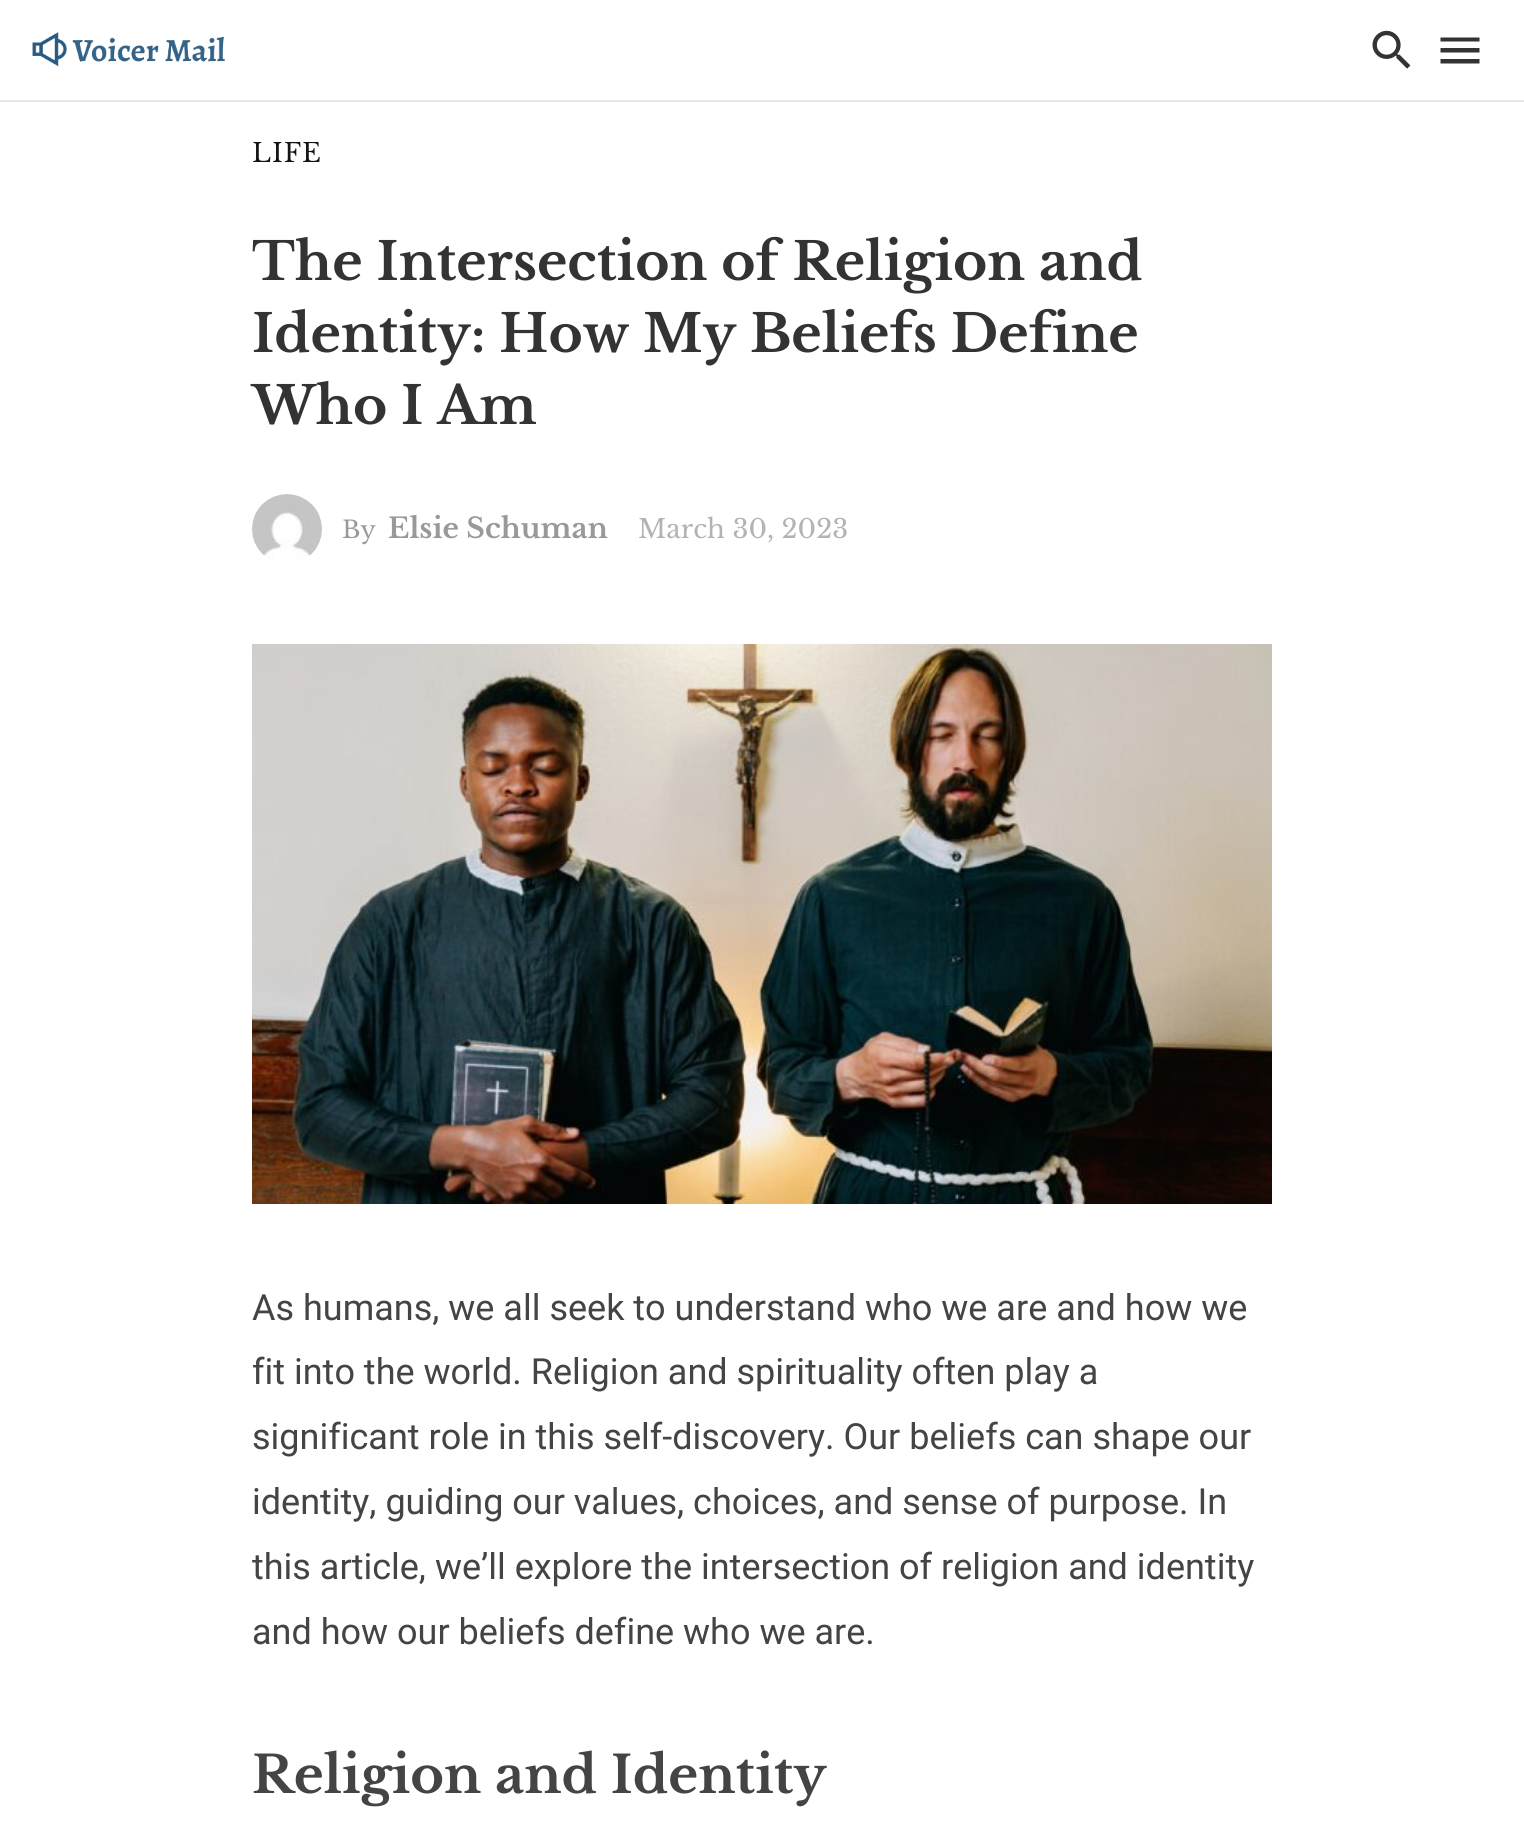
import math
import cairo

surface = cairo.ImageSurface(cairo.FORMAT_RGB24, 1524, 1846)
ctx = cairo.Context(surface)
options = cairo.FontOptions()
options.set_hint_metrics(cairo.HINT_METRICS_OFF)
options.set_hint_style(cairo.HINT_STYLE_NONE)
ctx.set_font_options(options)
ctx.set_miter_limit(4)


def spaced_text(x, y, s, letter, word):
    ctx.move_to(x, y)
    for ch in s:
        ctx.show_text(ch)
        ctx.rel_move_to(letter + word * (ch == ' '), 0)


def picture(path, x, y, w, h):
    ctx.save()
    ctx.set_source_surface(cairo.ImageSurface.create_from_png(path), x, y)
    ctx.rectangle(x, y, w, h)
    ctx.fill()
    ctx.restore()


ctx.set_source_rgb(1, 1, 1)
ctx.paint()
ctx.set_source_rgb(0.91, 0.91, 0.91)
ctx.rectangle(0, 100, 1524, 2)
ctx.fill()
picture("img1.png", 32, 32, 194, 35)
picture("img2.png", 1372, 30, 39, 39)
ctx.set_source_rgb(0.2, 0.2, 0.2)
ctx.new_path()
ctx.move_to(1440.5, 37.5)
ctx.line_to(1479.5, 37.5)
ctx.line_to(1479.5, 41.5)
ctx.line_to(1440.5, 41.5)
ctx.close_path()
ctx.move_to(1440.5, 52.5)
ctx.line_to(1440.5, 48)
ctx.line_to(1479.5, 48)
ctx.line_to(1479.5, 52.5)
ctx.close_path()
ctx.move_to(1440.5, 63.5)
ctx.line_to(1440.5, 59)
ctx.line_to(1479.5, 59)
ctx.line_to(1479.5, 63.5)
ctx.close_path()
ctx.fill()
ctx.select_font_face("Libre Baskerville")
ctx.set_font_size(26)
ctx.set_source_rgb(0.082, 0.078, 0.086)
spaced_text(252, 162, "LIFE", 1, 0)
ctx.select_font_face("Libre Baskerville", cairo.FONT_SLANT_NORMAL, cairo.FONT_WEIGHT_BOLD)
ctx.set_font_size(52)
ctx.set_source_rgb(0.2, 0.2, 0.2)
ctx.move_to(252, 280)
ctx.show_text("The Intersection of Religion and")
ctx.move_to(252, 352)
ctx.show_text("Identity: How My Beliefs Define")
ctx.move_to(252, 424)
ctx.show_text("Who I Am")
picture("img3.png", 252, 494, 70, 67)
ctx.select_font_face("Libre Baskerville")
ctx.set_font_size(24)
ctx.set_source_rgb(0.6, 0.6, 0.6)
ctx.move_to(342, 538)
ctx.show_text("By")
ctx.select_font_face("Libre Baskerville", cairo.FONT_SLANT_NORMAL, cairo.FONT_WEIGHT_BOLD)
ctx.set_font_size(28)
ctx.move_to(388, 538)
ctx.show_text("Elsie Schuman")
ctx.select_font_face("Libre Baskerville")
ctx.set_font_size(26)
ctx.set_source_rgb(0.702, 0.702, 0.702)
ctx.move_to(638, 538)
ctx.show_text("March 30, 2023")
picture("img4.png", 252, 644, 1020, 560)
ctx.select_font_face("Roboto")
ctx.set_font_size(36)
ctx.set_source_rgb(0.267, 0.267, 0.267)
ctx.move_to(252, 1320)
ctx.show_text("As humans, we all seek to understand who we are and how we")
ctx.move_to(252, 1384)
ctx.show_text("fit into the world. Religion and spirituality often play a")
ctx.move_to(252, 1449)
ctx.show_text("significant role in this self-discovery. Our beliefs can shape our")
ctx.move_to(252, 1514)
ctx.show_text("identity, guiding our values, choices, and sense of purpose. In")
ctx.move_to(252, 1579)
ctx.show_text("this article, we’ll explore the intersection of religion and identity")
ctx.move_to(252, 1644)
ctx.show_text("and how our beliefs define who we are.")
ctx.select_font_face("Libre Baskerville", cairo.FONT_SLANT_NORMAL, cairo.FONT_WEIGHT_BOLD)
ctx.set_font_size(51.25)
ctx.move_to(252, 1793)
ctx.show_text("Religion and Identity")
surface.write_to_png("page.png")
